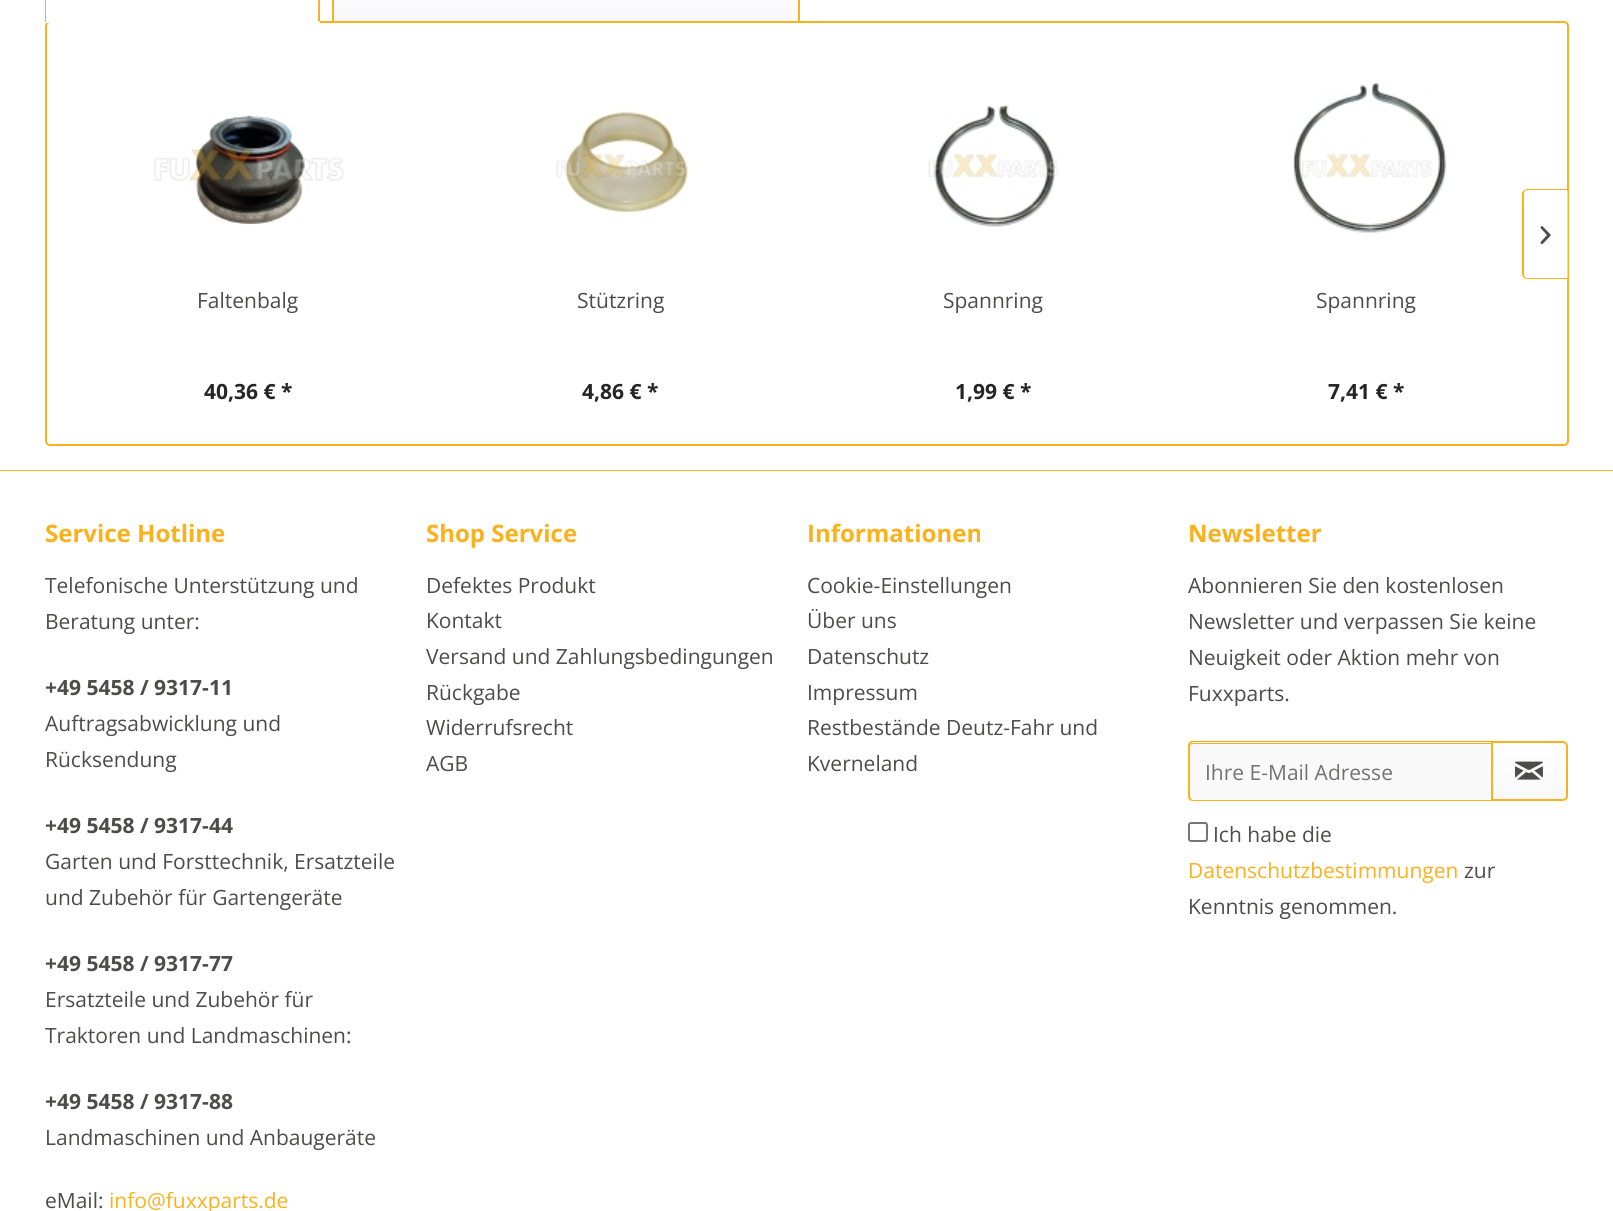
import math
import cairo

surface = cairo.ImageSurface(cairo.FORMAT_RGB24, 1613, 1211)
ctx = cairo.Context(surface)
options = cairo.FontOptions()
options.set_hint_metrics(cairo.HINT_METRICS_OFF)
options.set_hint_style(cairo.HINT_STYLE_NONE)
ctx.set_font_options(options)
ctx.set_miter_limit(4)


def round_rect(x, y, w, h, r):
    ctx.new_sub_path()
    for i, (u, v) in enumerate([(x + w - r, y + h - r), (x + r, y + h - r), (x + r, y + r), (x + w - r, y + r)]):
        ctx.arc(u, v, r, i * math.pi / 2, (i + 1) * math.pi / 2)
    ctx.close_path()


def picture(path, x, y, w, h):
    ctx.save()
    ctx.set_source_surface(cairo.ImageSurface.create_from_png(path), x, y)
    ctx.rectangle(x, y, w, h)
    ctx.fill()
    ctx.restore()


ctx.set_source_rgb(1, 1, 1)
ctx.paint()
round_rect(46, 22, 1522, 423, 4)
ctx.set_source_rgb(0.98, 0.694, 0.114)
ctx.stroke()
ctx.set_source_rgb(1, 1, 1)
ctx.rectangle(46, 21, 274, 2)
ctx.fill()
ctx.set_source_rgb(0.98, 0.694, 0.114)
ctx.new_path()
ctx.move_to(320, 22)
ctx.line_to(318, 21)
ctx.curve_to(318, 14, 319, -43, 317, -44)
ctx.line_to(318, -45)
ctx.line_to(320, -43)
ctx.close_path()
ctx.fill()
ctx.set_source_rgb(1, 1, 1)
ctx.new_path()
ctx.move_to(319, 22)
ctx.line_to(46, 22)
ctx.line_to(46, 21)
ctx.line_to(318, 21)
ctx.close_path()
ctx.fill()
ctx.set_source_rgb(0.98, 0.694, 0.114)
ctx.new_path()
ctx.move_to(45, -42)
ctx.line_to(45, 22)
ctx.line_to(46, 22)
ctx.line_to(46, 21)
ctx.line_to(46, -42)
ctx.line_to(47, -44)
ctx.line_to(47, -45)
ctx.curve_to(46, -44, 45, -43, 45, -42)
ctx.close_path()
ctx.fill()
gradient = cairo.LinearGradient(566, -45, 566, 21)
gradient.add_color_stop_rgba(0, 1, 1, 1, 1)
gradient.add_color_stop_rgba(1, 0.973, 0.973, 0.98, 1)
ctx.set_source(gradient)
ctx.rectangle(334, 0, 464, 21)
ctx.fill()
ctx.rectangle(333, -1, 466, 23)
ctx.set_source_rgb(0.98, 0.694, 0.114)
ctx.stroke()
ctx.set_source_rgba(1, 1, 1, 0.5)
ctx.new_path()
ctx.move_to(1527, 191)
ctx.line_to(1568, 191)
ctx.line_to(1568, 278)
ctx.line_to(1527, 278)
ctx.curve_to(1525.5, 278, 1524, 276.5, 1524, 275)
ctx.line_to(1524, 194)
ctx.curve_to(1524, 192.5, 1525.5, 191, 1527, 191)
ctx.close_path()
ctx.fill()
ctx.set_source_rgb(0.98, 0.694, 0.114)
ctx.set_fill_rule(cairo.FILL_RULE_EVEN_ODD)
ctx.new_path()
ctx.move_to(1527, 189)
ctx.line_to(1568, 189)
ctx.line_to(1568, 279)
ctx.line_to(1527, 279)
ctx.curve_to(1525, 279, 1522, 277, 1522, 274)
ctx.line_to(1522, 194)
ctx.curve_to(1522, 191, 1525, 189, 1527, 189)
ctx.close_path()
ctx.move_to(1527, 190)
ctx.line_to(1568, 190)
ctx.line_to(1568, 278)
ctx.line_to(1527, 278)
ctx.curve_to(1525, 278, 1524, 276, 1524, 274)
ctx.line_to(1524, 194)
ctx.curve_to(1524, 192, 1525, 190, 1527, 190)
ctx.close_path()
ctx.fill()
picture("img1.png", 1540, 226, 11, 19)
picture("img2.png", 154, 115, 190, 110)
ctx.select_font_face("Open Sans")
ctx.set_font_size(21)
ctx.set_source_rgb(0.298, 0.298, 0.294)
ctx.move_to(197, 308)
ctx.show_text("Faltenbalg")
ctx.select_font_face("Open Sans", cairo.FONT_SLANT_NORMAL, cairo.FONT_WEIGHT_BOLD)
ctx.set_source_rgb(0.145, 0.145, 0.145)
ctx.move_to(204, 399)
ctx.show_text("40,36 € *")
picture("img3.png", 556, 110, 133, 104)
ctx.select_font_face("Open Sans")
ctx.set_source_rgb(0.298, 0.298, 0.294)
ctx.move_to(577, 308)
ctx.show_text("Stützring")
ctx.select_font_face("Open Sans", cairo.FONT_SLANT_NORMAL, cairo.FONT_WEIGHT_BOLD)
ctx.set_source_rgb(0.145, 0.145, 0.145)
ctx.move_to(582, 399)
ctx.show_text("4,86 € *")
picture("img4.png", 928, 104, 131, 123)
ctx.select_font_face("Open Sans")
ctx.set_source_rgb(0.298, 0.298, 0.294)
ctx.move_to(943, 308)
ctx.show_text("Spannring")
ctx.select_font_face("Open Sans", cairo.FONT_SLANT_NORMAL, cairo.FONT_WEIGHT_BOLD)
ctx.set_source_rgb(0.145, 0.145, 0.145)
ctx.move_to(955, 399)
ctx.show_text("1,99 € *")
picture("img5.png", 1293, 82, 154, 151)
ctx.select_font_face("Open Sans")
ctx.set_source_rgb(0.298, 0.298, 0.294)
ctx.move_to(1316, 308)
ctx.show_text("Spannring")
ctx.select_font_face("Open Sans", cairo.FONT_SLANT_NORMAL, cairo.FONT_WEIGHT_BOLD)
ctx.set_source_rgb(0.145, 0.145, 0.145)
ctx.move_to(1328, 399)
ctx.show_text("7,41 € *")
ctx.set_source_rgb(0.98, 0.694, 0.114)
ctx.rectangle(0, 470, 1613, 1)
ctx.fill()
ctx.set_font_size(24)
ctx.move_to(45, 542)
ctx.show_text("Service Hotline")
ctx.select_font_face("Open Sans")
ctx.set_font_size(21)
ctx.set_source_rgb(0.298, 0.298, 0.294)
ctx.move_to(45, 593)
ctx.show_text("Telefonische Unterstützung und")
ctx.move_to(45, 629)
ctx.show_text("Beratung unter:")
ctx.select_font_face("Open Sans", cairo.FONT_SLANT_NORMAL, cairo.FONT_WEIGHT_BOLD)
ctx.move_to(45, 695)
ctx.show_text("+49 5458 / 9317-11")
ctx.select_font_face("Open Sans")
ctx.move_to(45, 731)
ctx.show_text("Auftragsabwicklung und")
ctx.move_to(45, 767)
ctx.show_text("Rücksendung")
ctx.select_font_face("Open Sans", cairo.FONT_SLANT_NORMAL, cairo.FONT_WEIGHT_BOLD)
ctx.move_to(45, 833)
ctx.show_text("+49 5458 / 9317-44")
ctx.select_font_face("Open Sans")
ctx.move_to(45, 869)
ctx.show_text("Garten und Forsttechnik, Ersatzteile")
ctx.move_to(45, 905)
ctx.show_text("und Zubehör für Gartengeräte")
ctx.select_font_face("Open Sans", cairo.FONT_SLANT_NORMAL, cairo.FONT_WEIGHT_BOLD)
ctx.move_to(45, 971)
ctx.show_text("+49 5458 / 9317-77")
ctx.select_font_face("Open Sans")
ctx.move_to(45, 1007)
ctx.show_text("Ersatzteile und Zubehör für")
ctx.move_to(45, 1043)
ctx.show_text("Traktoren und Landmaschinen:")
ctx.select_font_face("Open Sans", cairo.FONT_SLANT_NORMAL, cairo.FONT_WEIGHT_BOLD)
ctx.move_to(45, 1109)
ctx.show_text("+49 5458 / 9317-88")
ctx.select_font_face("Open Sans")
ctx.move_to(45, 1145)
ctx.show_text("Landmaschinen und Anbaugeräte")
ctx.move_to(45, 1208)
ctx.show_text("eMail:")
ctx.set_source_rgb(0.98, 0.694, 0.114)
ctx.move_to(109, 1208)
ctx.show_text("info@fuxxparts.de")
ctx.select_font_face("Open Sans", cairo.FONT_SLANT_NORMAL, cairo.FONT_WEIGHT_BOLD)
ctx.set_font_size(24)
ctx.move_to(426, 542)
ctx.show_text("Shop Service")
ctx.select_font_face("Open Sans")
ctx.set_font_size(21)
ctx.set_source_rgb(0.298, 0.298, 0.294)
ctx.move_to(426, 593)
ctx.show_text("Defektes Produkt")
ctx.move_to(426, 628)
ctx.show_text("Kontakt")
ctx.move_to(426, 664)
ctx.show_text("Versand und Zahlungsbedingungen")
ctx.move_to(426, 700)
ctx.show_text("Rückgabe")
ctx.move_to(426, 735)
ctx.show_text("Widerrufsrecht")
ctx.move_to(426, 771)
ctx.show_text("AGB")
ctx.select_font_face("Open Sans", cairo.FONT_SLANT_NORMAL, cairo.FONT_WEIGHT_BOLD)
ctx.set_font_size(24)
ctx.set_source_rgb(0.98, 0.694, 0.114)
ctx.move_to(807, 542)
ctx.show_text("Informationen")
ctx.select_font_face("Open Sans")
ctx.set_font_size(21)
ctx.set_source_rgb(0.298, 0.298, 0.294)
ctx.move_to(807, 593)
ctx.show_text("Cookie-Einstellungen")
ctx.move_to(807, 628)
ctx.show_text("Über uns")
ctx.move_to(807, 664)
ctx.show_text("Datenschutz")
ctx.move_to(807, 700)
ctx.show_text("Impressum")
ctx.move_to(807, 735)
ctx.show_text("Restbestände Deutz-Fahr und")
ctx.move_to(807, 771)
ctx.show_text("Kverneland")
ctx.select_font_face("Open Sans", cairo.FONT_SLANT_NORMAL, cairo.FONT_WEIGHT_BOLD)
ctx.set_font_size(24)
ctx.set_source_rgb(0.98, 0.694, 0.114)
ctx.move_to(1188, 542)
ctx.show_text("Newsletter")
ctx.select_font_face("Open Sans")
ctx.set_font_size(21)
ctx.set_source_rgb(0.298, 0.298, 0.294)
ctx.move_to(1188, 593)
ctx.show_text("Abonnieren Sie den kostenlosen")
ctx.move_to(1188, 629)
ctx.show_text("Newsletter und verpassen Sie keine")
ctx.move_to(1188, 665)
ctx.show_text("Neuigkeit oder Aktion mehr von")
ctx.move_to(1188, 701)
ctx.show_text("Fuxxparts.")
ctx.set_source_rgb(0.973, 0.973, 0.98)
ctx.new_path()
ctx.move_to(1193, 743)
ctx.line_to(1491, 743)
ctx.line_to(1491, 800)
ctx.line_to(1193, 800)
ctx.curve_to(1191.5, 800, 1190, 798.5, 1190, 797)
ctx.line_to(1190, 746)
ctx.curve_to(1190, 744.5, 1191.5, 743, 1193, 743)
ctx.close_path()
ctx.fill()
ctx.set_source_rgb(0.98, 0.694, 0.114)
ctx.set_fill_rule(cairo.FILL_RULE_WINDING)
ctx.new_path()
ctx.move_to(1192, 744)
ctx.line_to(1491, 744)
ctx.line_to(1491, 743)
ctx.line_to(1193, 743)
ctx.curve_to(1191, 743, 1190, 745, 1190, 747)
ctx.curve_to(1190, 745, 1191, 744, 1192, 744)
ctx.close_path()
ctx.fill()
ctx.set_source_rgb(0.973, 0.659, 0.02)
ctx.new_path()
ctx.move_to(1192, 741)
ctx.line_to(1189, 742)
ctx.line_to(1191, 744)
ctx.line_to(1192, 742)
ctx.line_to(1491, 742)
ctx.line_to(1492, 741)
ctx.close_path()
ctx.fill()
ctx.set_source_rgb(0.98, 0.694, 0.114)
ctx.new_path()
ctx.move_to(1192, 801)
ctx.line_to(1492, 801)
ctx.line_to(1492, 800)
ctx.line_to(1491, 800)
ctx.line_to(1192, 800)
ctx.line_to(1191, 798)
ctx.line_to(1189, 800)
ctx.close_path()
ctx.fill()
ctx.new_path()
ctx.move_to(1188, 746)
ctx.line_to(1188, 796)
ctx.curve_to(1188, 798, 1189, 799, 1189, 800)
ctx.line_to(1191, 798)
ctx.line_to(1190, 796)
ctx.line_to(1190, 746)
ctx.line_to(1191, 744)
ctx.line_to(1189, 742)
ctx.curve_to(1189, 743, 1188, 744, 1188, 746)
ctx.close_path()
ctx.fill()
ctx.set_source_rgb(0.451, 0.451, 0.443)
ctx.move_to(1205, 780)
ctx.show_text("Ihre E-Mail Adresse")
gradient = cairo.LinearGradient(1529, 743, 1529, 800)
gradient.add_color_stop_rgba(0, 1, 1, 1, 1)
gradient.add_color_stop_rgba(1, 0.973, 0.973, 0.98, 1)
ctx.set_source(gradient)
ctx.new_path()
ctx.move_to(1493, 743)
ctx.line_to(1563, 743)
ctx.curve_to(1564.5, 743, 1566, 744.5, 1566, 746)
ctx.line_to(1566, 797)
ctx.curve_to(1566, 798.5, 1564.5, 800, 1563, 800)
ctx.line_to(1493, 800)
ctx.close_path()
ctx.fill()
ctx.new_path()
ctx.move_to(1492, 742)
ctx.line_to(1563, 742)
ctx.curve_to(1565, 742, 1567, 744, 1567, 746)
ctx.line_to(1567, 796)
ctx.curve_to(1567, 798, 1565, 800, 1563, 800)
ctx.line_to(1492, 800)
ctx.close_path()
ctx.set_source_rgb(0.98, 0.694, 0.114)
ctx.stroke()
picture("img6.png", 1515, 761, 28, 19)
round_rect(1189, 823, 18, 18, 2)
ctx.set_source_rgb(0.463, 0.463, 0.463)
ctx.stroke()
ctx.set_source_rgb(0.298, 0.298, 0.294)
ctx.move_to(1213, 842)
ctx.show_text("Ich habe die")
ctx.set_source_rgb(0.98, 0.694, 0.114)
ctx.move_to(1188, 878)
ctx.show_text("Datenschutzbestimmungen")
ctx.set_source_rgb(0.298, 0.298, 0.294)
ctx.move_to(1464, 878)
ctx.show_text("zur")
ctx.move_to(1188, 914)
ctx.show_text("Kenntnis genommen.")
surface.write_to_png("page.png")
